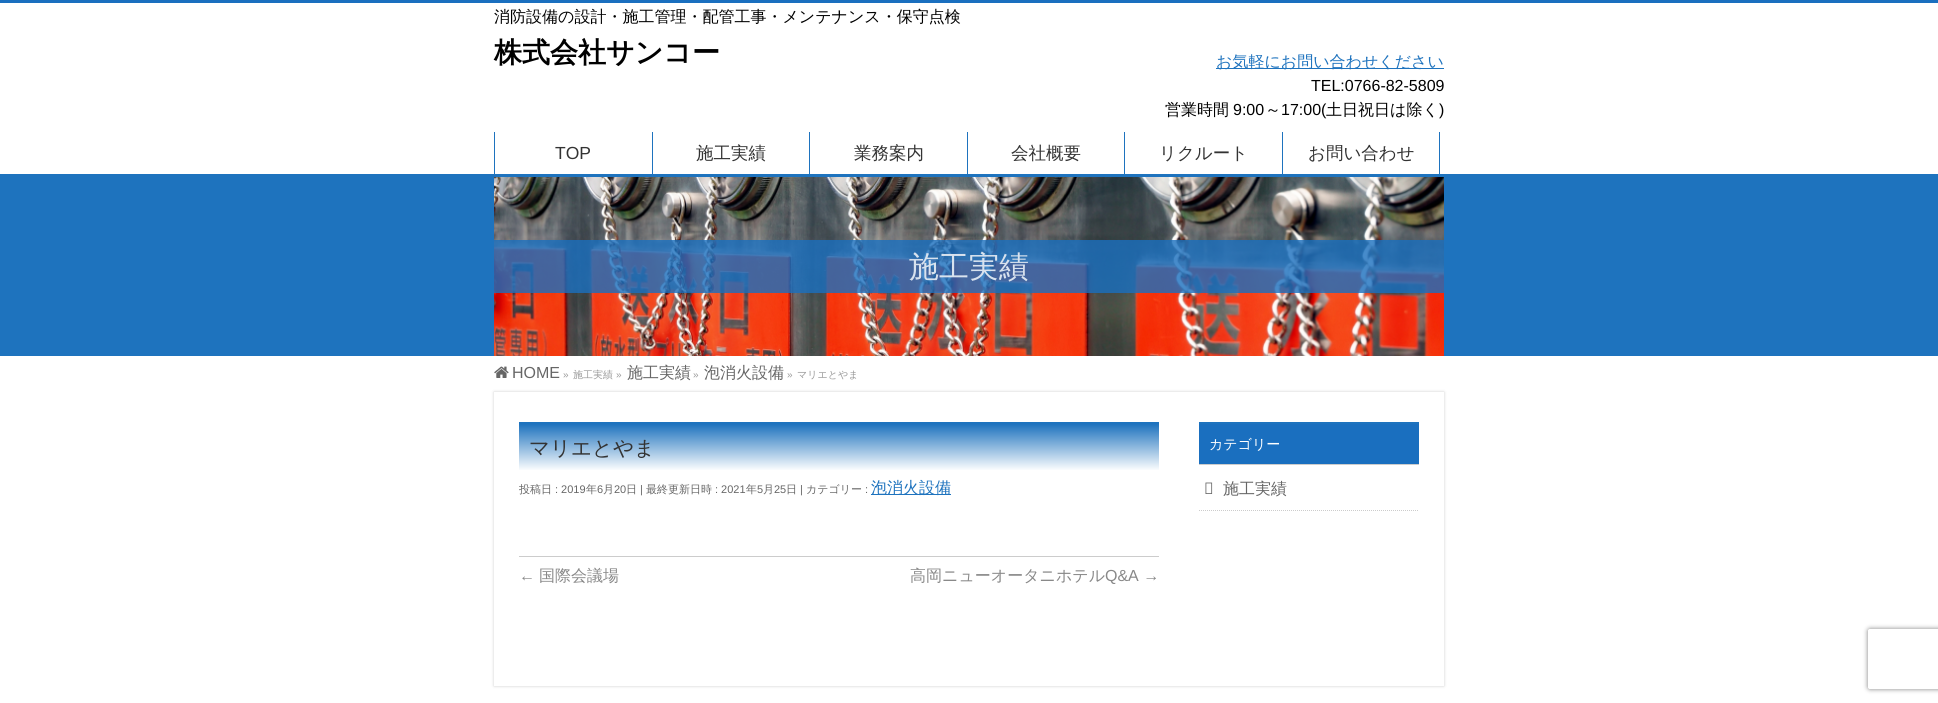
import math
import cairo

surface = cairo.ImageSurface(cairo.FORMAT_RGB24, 1938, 703)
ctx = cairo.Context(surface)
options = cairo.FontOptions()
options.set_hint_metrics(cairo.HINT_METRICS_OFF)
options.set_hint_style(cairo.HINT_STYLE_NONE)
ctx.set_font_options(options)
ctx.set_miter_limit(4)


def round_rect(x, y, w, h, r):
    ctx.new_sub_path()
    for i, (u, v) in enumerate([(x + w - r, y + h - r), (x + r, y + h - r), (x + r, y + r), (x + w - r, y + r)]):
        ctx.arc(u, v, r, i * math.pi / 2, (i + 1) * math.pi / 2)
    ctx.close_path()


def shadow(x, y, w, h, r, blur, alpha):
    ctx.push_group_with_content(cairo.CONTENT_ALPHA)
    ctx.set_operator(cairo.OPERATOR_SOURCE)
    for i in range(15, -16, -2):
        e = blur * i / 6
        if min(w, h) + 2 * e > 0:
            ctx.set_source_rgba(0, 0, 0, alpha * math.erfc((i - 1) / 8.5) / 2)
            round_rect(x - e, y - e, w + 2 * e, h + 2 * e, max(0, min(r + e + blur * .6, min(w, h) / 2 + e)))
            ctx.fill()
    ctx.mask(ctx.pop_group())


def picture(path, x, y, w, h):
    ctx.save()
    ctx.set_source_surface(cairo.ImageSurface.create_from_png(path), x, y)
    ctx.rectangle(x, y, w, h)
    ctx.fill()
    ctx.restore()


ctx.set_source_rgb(1, 1, 1)
ctx.paint()
ctx.set_source_rgb(0.102, 0.435, 0.749)
ctx.rectangle(0, 0, 1938, 3)
ctx.fill()
ctx.select_font_face("WenQuanYi Zen Hei Medium")
ctx.set_font_size(16)
ctx.set_source_rgb(0, 0, 0)
ctx.move_to(494, 22)
ctx.show_text("消防設備の設計・施工管理・配管工事・メンテナンス・保守点検")
ctx.select_font_face("WenQuanYi Zen Hei", cairo.FONT_SLANT_NORMAL, cairo.FONT_WEIGHT_BOLD)
ctx.set_font_size(28)
ctx.move_to(494, 62)
ctx.show_text("株式会社サンコー")
ctx.set_source_rgb(0.118, 0.451, 0.745)
ctx.rectangle(1216, 68, 228, 1)
ctx.fill()
ctx.select_font_face("WenQuanYi Zen Hei Medium")
ctx.set_font_size(16)
ctx.move_to(1216, 67)
ctx.show_text("お気軽にお問い合わせください")
ctx.select_font_face("Liberation Sans")
ctx.set_source_rgb(0, 0, 0)
ctx.move_to(1311, 91)
ctx.show_text("TEL:0766-82-5809")
ctx.select_font_face("WenQuanYi Zen Hei Medium")
ctx.move_to(1165, 115)
ctx.show_text("営業時間")
ctx.select_font_face("Liberation Sans")
ctx.move_to(1233, 115)
ctx.show_text("9:00")
ctx.select_font_face("WenQuanYi Zen Hei Medium")
ctx.move_to(1265, 115)
ctx.show_text("～")
ctx.select_font_face("Liberation Sans")
ctx.move_to(1281, 115)
ctx.show_text("17:00(")
ctx.select_font_face("WenQuanYi Zen Hei Medium")
ctx.move_to(1326, 115)
ctx.show_text("土日祝日は除く")
ctx.select_font_face("Liberation Sans")
ctx.move_to(1439, 115)
ctx.show_text(")")
ctx.set_source_rgb(0.118, 0.451, 0.745)
ctx.rectangle(494, 132, 1, 42)
ctx.fill()
ctx.rectangle(652, 132, 1, 42)
ctx.fill()
ctx.set_font_size(17.5)
ctx.set_source_rgb(0.2, 0.2, 0.2)
ctx.move_to(555, 159)
ctx.show_text("TOP")
ctx.set_source_rgb(0.118, 0.451, 0.745)
ctx.rectangle(809, 132, 1, 42)
ctx.fill()
ctx.select_font_face("WenQuanYi Zen Hei Medium")
ctx.set_source_rgb(0.2, 0.2, 0.2)
ctx.move_to(696, 159)
ctx.show_text("施工実績")
ctx.set_source_rgb(0.118, 0.451, 0.745)
ctx.rectangle(967, 132, 1, 42)
ctx.fill()
ctx.set_source_rgb(0.2, 0.2, 0.2)
ctx.move_to(854, 159)
ctx.show_text("業務案内")
ctx.set_source_rgb(0.118, 0.451, 0.745)
ctx.rectangle(1124, 132, 1, 42)
ctx.fill()
ctx.set_source_rgb(0.2, 0.2, 0.2)
ctx.move_to(1011, 159)
ctx.show_text("会社概要")
ctx.set_source_rgb(0.118, 0.451, 0.745)
ctx.rectangle(1282, 132, 1, 42)
ctx.fill()
ctx.set_source_rgb(0.2, 0.2, 0.2)
ctx.move_to(1159, 159)
ctx.show_text("リクルート")
ctx.set_source_rgb(0.118, 0.451, 0.745)
ctx.rectangle(1439, 132, 1, 42)
ctx.fill()
ctx.set_source_rgb(0.2, 0.2, 0.2)
ctx.move_to(1308, 159)
ctx.show_text("お問い合わせ")
ctx.set_source_rgb(0.118, 0.451, 0.745)
ctx.rectangle(0, 174, 1938, 182)
ctx.fill()
picture("img1.png", 494, 177, 950, 179)
ctx.set_source_rgba(0.102, 0.435, 0.749, 0.8)
ctx.rectangle(494, 240, 950, 53)
ctx.fill()
ctx.set_font_size(30)
ctx.set_source_rgb(0.847, 0.886, 0.933)
ctx.move_to(909, 277)
ctx.show_text("施工実績")
picture("img2.png", 494, 366, 15, 12)
ctx.select_font_face("Liberation Sans")
ctx.set_font_size(16)
ctx.set_source_rgb(0.4, 0.4, 0.4)
ctx.move_to(512, 378)
ctx.show_text("HOME")
ctx.set_font_size(10)
ctx.set_source_rgb(0.6, 0.6, 0.6)
ctx.move_to(563, 378)
ctx.show_text("»")
ctx.select_font_face("WenQuanYi Zen Hei Medium")
ctx.move_to(573, 378)
ctx.show_text("施工実績")
ctx.select_font_face("Liberation Sans")
ctx.move_to(616, 378)
ctx.show_text("»")
ctx.select_font_face("WenQuanYi Zen Hei Medium")
ctx.set_font_size(16)
ctx.set_source_rgb(0.4, 0.4, 0.4)
ctx.move_to(627, 378)
ctx.show_text("施工実績")
ctx.select_font_face("Liberation Sans")
ctx.set_font_size(10)
ctx.set_source_rgb(0.6, 0.6, 0.6)
ctx.move_to(693, 378)
ctx.show_text("»")
ctx.select_font_face("WenQuanYi Zen Hei Medium")
ctx.set_font_size(16)
ctx.set_source_rgb(0.4, 0.4, 0.4)
ctx.move_to(704, 378)
ctx.show_text("泡消火設備")
ctx.select_font_face("Liberation Sans")
ctx.set_font_size(10)
ctx.set_source_rgb(0.6, 0.6, 0.6)
ctx.move_to(787, 378)
ctx.show_text("»")
ctx.select_font_face("WenQuanYi Zen Hei Medium")
ctx.move_to(797, 378)
ctx.show_text("マリエとやま")
ctx.save()
ctx.set_fill_rule(cairo.FILL_RULE_EVEN_ODD)
ctx.new_path()
ctx.move_to(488, 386)
ctx.line_to(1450, 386)
ctx.line_to(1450, 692)
ctx.line_to(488, 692)
ctx.close_path()
ctx.move_to(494, 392)
ctx.line_to(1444, 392)
ctx.line_to(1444, 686)
ctx.line_to(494, 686)
ctx.close_path()
ctx.clip()
ctx.set_source_rgb(0, 0, 0)
shadow(494, 392, 950, 294, 0, 1.5, 0.2)
ctx.restore()
gradient = cairo.LinearGradient(839, 424, 839, 471)
gradient.add_color_stop_rgba(0, 0.118, 0.451, 0.745, 1)
gradient.add_color_stop_rgba(1, 1, 1, 1, 1)
ctx.set_source(gradient)
ctx.rectangle(519, 424, 640, 46)
ctx.fill()
ctx.set_source_rgb(0.118, 0.451, 0.745)
ctx.rectangle(519, 422, 640, 2)
ctx.fill()
ctx.set_font_size(20.5)
ctx.set_source_rgb(0.2, 0.2, 0.2)
ctx.move_to(529, 455)
ctx.show_text("マリエとやま")
ctx.set_font_size(11)
ctx.set_source_rgb(0.4, 0.4, 0.4)
ctx.move_to(519, 493)
ctx.show_text("投稿日")
ctx.select_font_face("Liberation Sans")
ctx.move_to(555, 493)
ctx.show_text(": 2019")
ctx.select_font_face("WenQuanYi Zen Hei Medium")
ctx.move_to(586, 493)
ctx.show_text("年")
ctx.select_font_face("Liberation Sans")
ctx.move_to(597, 493)
ctx.show_text("6")
ctx.select_font_face("WenQuanYi Zen Hei Medium")
ctx.move_to(603, 493)
ctx.show_text("月")
ctx.select_font_face("Liberation Sans")
ctx.move_to(614, 493)
ctx.show_text("20")
ctx.select_font_face("WenQuanYi Zen Hei Medium")
ctx.move_to(626, 493)
ctx.show_text("日")
ctx.select_font_face("Liberation Sans")
ctx.move_to(640, 493)
ctx.show_text("|")
ctx.select_font_face("WenQuanYi Zen Hei Medium")
ctx.move_to(646, 493)
ctx.show_text("最終更新日時")
ctx.select_font_face("Liberation Sans")
ctx.move_to(715, 493)
ctx.show_text(": 2021")
ctx.select_font_face("WenQuanYi Zen Hei Medium")
ctx.move_to(746, 493)
ctx.show_text("年")
ctx.select_font_face("Liberation Sans")
ctx.move_to(757, 493)
ctx.show_text("5")
ctx.select_font_face("WenQuanYi Zen Hei Medium")
ctx.move_to(763, 493)
ctx.show_text("月")
ctx.select_font_face("Liberation Sans")
ctx.move_to(774, 493)
ctx.show_text("25")
ctx.select_font_face("WenQuanYi Zen Hei Medium")
ctx.move_to(786, 493)
ctx.show_text("日")
ctx.select_font_face("Liberation Sans")
ctx.move_to(800, 493)
ctx.show_text("|")
ctx.select_font_face("WenQuanYi Zen Hei Medium")
ctx.move_to(806, 493)
ctx.show_text("カテゴリー")
ctx.select_font_face("Liberation Sans")
ctx.move_to(865, 493)
ctx.show_text(":")
ctx.set_source_rgb(0.118, 0.451, 0.745)
ctx.rectangle(871, 494, 80, 1)
ctx.fill()
ctx.select_font_face("WenQuanYi Zen Hei Medium")
ctx.set_font_size(16)
ctx.move_to(871, 493)
ctx.show_text("泡消火設備")
ctx.set_source_rgb(0.8, 0.8, 0.8)
ctx.rectangle(519, 556, 640, 1)
ctx.fill()
ctx.select_font_face("Liberation Sans")
ctx.set_source_rgb(0.533, 0.533, 0.533)
ctx.move_to(519, 581)
ctx.show_text("←")
ctx.select_font_face("WenQuanYi Zen Hei Medium")
ctx.move_to(539, 581)
ctx.show_text("国際会議場")
ctx.move_to(910, 581)
ctx.show_text("高岡ニューオータニホテル")
ctx.select_font_face("Liberation Sans")
ctx.move_to(1105, 581)
ctx.show_text("Q&A →")
ctx.set_source_rgb(0.102, 0.435, 0.749)
ctx.rectangle(1199, 424, 220, 40)
ctx.fill()
ctx.set_source_rgb(0.118, 0.451, 0.745)
ctx.rectangle(1199, 422, 220, 2)
ctx.fill()
ctx.set_source_rgb(0.8, 0.8, 0.8)
ctx.rectangle(1199, 464, 220, 1)
ctx.fill()
ctx.select_font_face("WenQuanYi Zen Hei Medium")
ctx.set_font_size(14)
ctx.set_source_rgb(1, 1, 1)
ctx.move_to(1209, 449)
ctx.show_text("カテゴリー")
ctx.new_path()
ctx.move_to(1199, 510.5)
ctx.line_to(1419, 510.5)
ctx.set_source_rgb(0.8, 0.8, 0.8)
ctx.set_line_width(1)
ctx.set_dash([1, 1])
ctx.stroke()
picture("img3.png", 1205, 482, 8, 12)
ctx.set_font_size(16)
ctx.set_source_rgb(0.4, 0.4, 0.4)
ctx.move_to(1223, 494)
ctx.show_text("施工実績")
ctx.save()
ctx.set_fill_rule(cairo.FILL_RULE_EVEN_ODD)
ctx.new_path()
ctx.move_to(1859, 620)
ctx.line_to(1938, 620)
ctx.line_to(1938, 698)
ctx.line_to(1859, 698)
ctx.close_path()
ctx.move_to(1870, 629)
ctx.line_to(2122, 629)
ctx.curve_to(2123, 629, 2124, 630, 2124, 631)
ctx.line_to(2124, 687)
ctx.curve_to(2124, 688, 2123, 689, 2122, 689)
ctx.line_to(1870, 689)
ctx.curve_to(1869, 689, 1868, 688, 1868, 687)
ctx.line_to(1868, 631)
ctx.curve_to(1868, 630, 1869, 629, 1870, 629)
ctx.close_path()
ctx.clip()
ctx.set_source_rgb(0.502, 0.502, 0.502)
shadow(1868, 629, 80, 60, 2, 2.5, 1)
ctx.restore()
surface.write_to_png("page.png")
